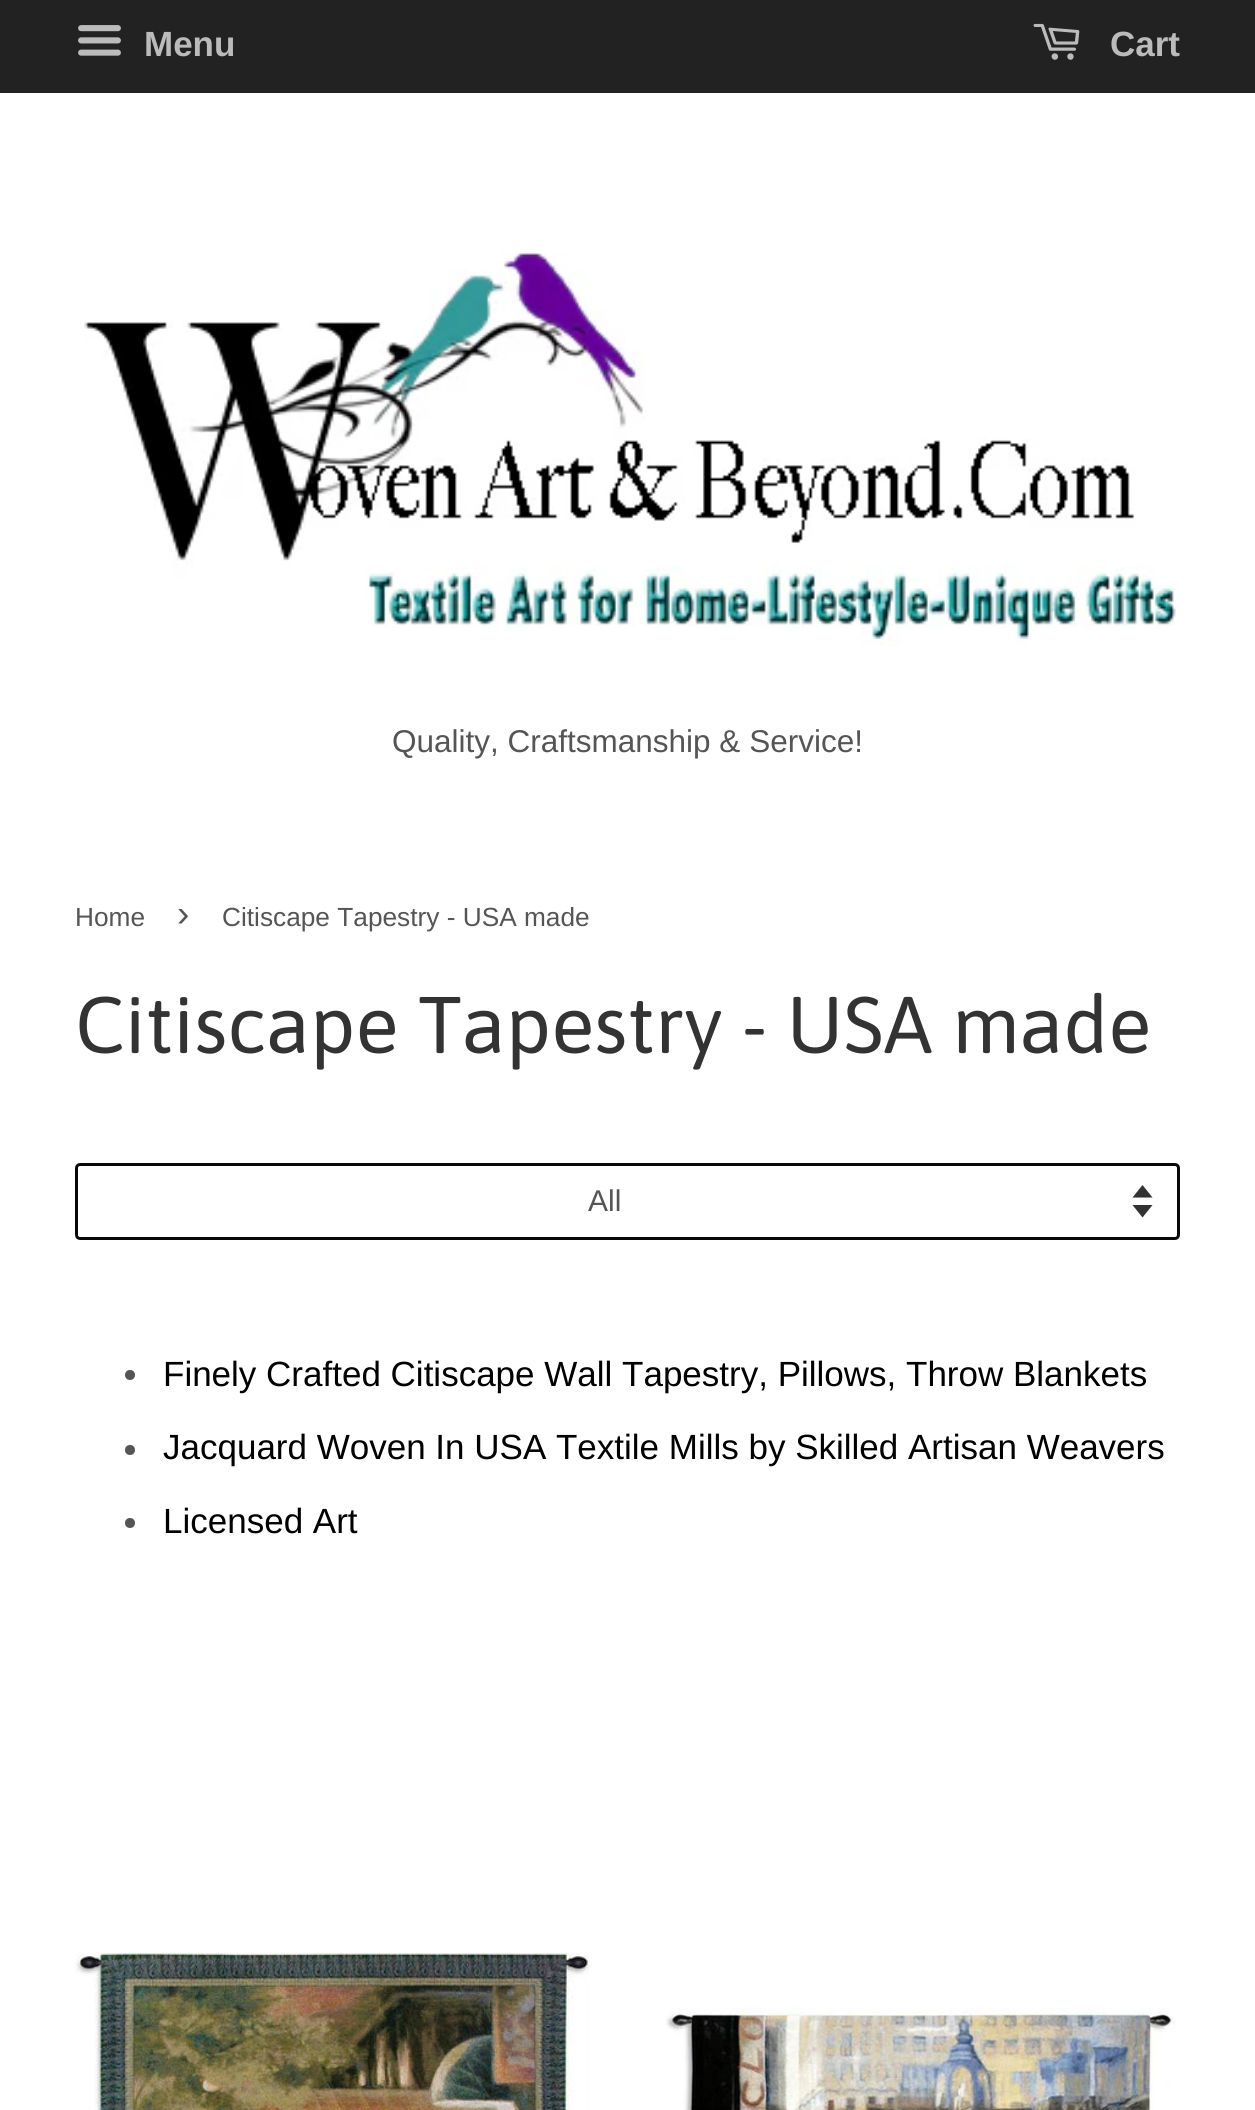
import math
import cairo

surface = cairo.ImageSurface(cairo.FORMAT_RGB24, 1255, 2110)
ctx = cairo.Context(surface)
options = cairo.FontOptions()
options.set_hint_metrics(cairo.HINT_METRICS_OFF)
options.set_hint_style(cairo.HINT_STYLE_NONE)
ctx.set_font_options(options)
ctx.set_miter_limit(4)


def round_rect(x, y, w, h, r):
    ctx.new_sub_path()
    for i, (u, v) in enumerate([(x + w - r, y + h - r), (x + r, y + h - r), (x + r, y + r), (x + w - r, y + r)]):
        ctx.arc(u, v, r, i * math.pi / 2, (i + 1) * math.pi / 2)
    ctx.close_path()


def picture(path, x, y, w, h):
    ctx.save()
    ctx.set_source_surface(cairo.ImageSurface.create_from_png(path), x, y)
    ctx.rectangle(x, y, w, h)
    ctx.fill()
    ctx.restore()


ctx.set_source_rgb(1, 1, 1)
ctx.paint()
ctx.set_source_rgb(0.133, 0.133, 0.133)
ctx.rectangle(0, 0, 1255, 93)
ctx.fill()
picture("img1.png", 78, 25, 43, 31)
ctx.select_font_face("Liberation Sans", cairo.FONT_SLANT_NORMAL, cairo.FONT_WEIGHT_BOLD)
ctx.set_font_size(35)
ctx.set_source_rgb(0.733, 0.733, 0.733)
ctx.move_to(144, 56)
ctx.show_text("Menu")
picture("img2.png", 1033, 23, 47, 37)
ctx.move_to(1110, 56)
ctx.show_text("Cart")
picture("img3.png", 84, 251, 1092, 395)
ctx.select_font_face("Liberation Sans")
ctx.set_font_size(31.5)
ctx.set_source_rgb(0.333, 0.333, 0.333)
ctx.move_to(392, 752)
ctx.show_text("Quality, Craftsmanship & Service!")
ctx.set_font_size(26.25)
ctx.move_to(75, 926)
ctx.show_text("Home")
ctx.set_font_size(37)
ctx.move_to(177, 926)
ctx.show_text("›")
ctx.set_font_size(26.25)
ctx.move_to(222, 926)
ctx.show_text("Citiscape Tapestry - USA made")
ctx.select_font_face("Asap")
ctx.set_font_size(80)
ctx.set_source_rgb(0.2, 0.2, 0.2)
ctx.move_to(75, 1053)
ctx.show_text("Citiscape Tapestry - USA made")
ctx.new_path()
ctx.move_to(1132.5, 1205)
ctx.line_to(1142.5, 1217.5)
ctx.line_to(1152.5, 1205)
ctx.close_path()
ctx.move_to(1142.5, 1185)
ctx.line_to(1132.5, 1197.5)
ctx.line_to(1152.5, 1197.5)
ctx.close_path()
ctx.fill()
round_rect(76.5, 1164.5, 1102, 74, 3.5)
ctx.set_source_rgb(0.039, 0.039, 0.039)
ctx.set_line_width(3)
ctx.stroke()
ctx.select_font_face("Liberation Sans")
ctx.set_font_size(30)
ctx.set_source_rgb(0.333, 0.333, 0.333)
ctx.move_to(588, 1211)
ctx.show_text("All")
ctx.new_path()
ctx.arc(130, 1375, 5, 0, 2 * math.pi)
ctx.fill()
ctx.set_font_size(35)
ctx.set_source_rgb(0, 0, 0)
ctx.move_to(163, 1386)
ctx.show_text("Finely Crafted Citiscape Wall Tapestry, Pillows, Throw Blankets")
ctx.set_source_rgb(0.333, 0.333, 0.333)
ctx.new_path()
ctx.arc(130, 1450, 5, 0, 2 * math.pi)
ctx.fill()
ctx.set_source_rgb(0, 0, 0)
ctx.move_to(163, 1459)
ctx.show_text("Jacquard Woven In USA Textile Mills by Skilled Artisan Weavers")
ctx.set_source_rgb(0.333, 0.333, 0.333)
ctx.new_path()
ctx.arc(130, 1523, 5, 0, 2 * math.pi)
ctx.fill()
ctx.set_source_rgb(0, 0, 0)
ctx.move_to(163, 1533)
ctx.show_text("Licensed Art")
picture("img4.png", 75, 1952, 515, 158)
picture("img5.png", 665, 2007, 511, 103)
surface.write_to_png("page.png")
